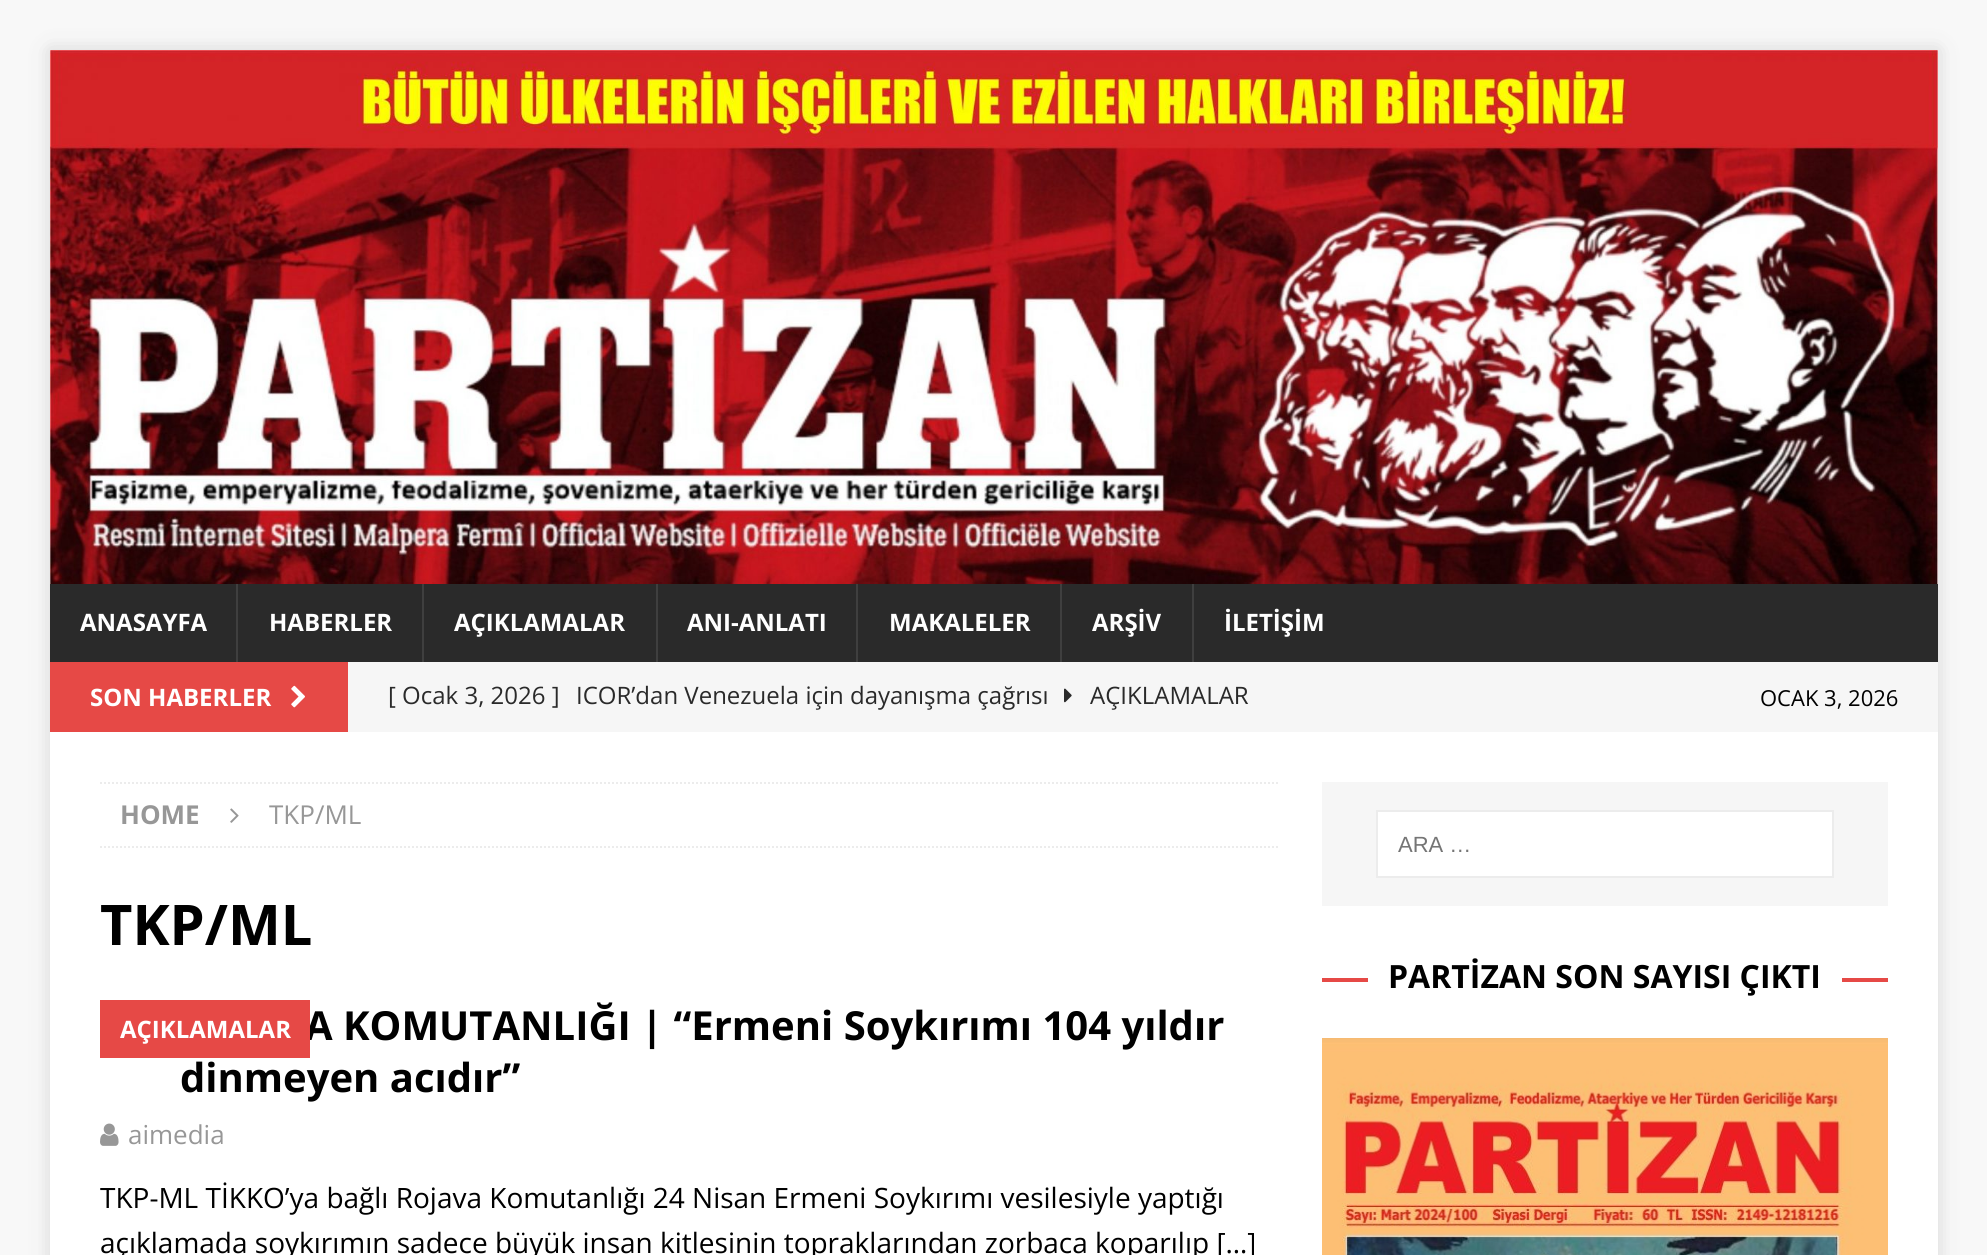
import math
import cairo

surface = cairo.ImageSurface(cairo.FORMAT_RGB24, 1987, 1255)
ctx = cairo.Context(surface)
options = cairo.FontOptions()
options.set_hint_metrics(cairo.HINT_METRICS_OFF)
options.set_hint_style(cairo.HINT_STYLE_NONE)
ctx.set_font_options(options)
ctx.set_miter_limit(4)


def round_rect(x, y, w, h, r):
    ctx.new_sub_path()
    for i, (u, v) in enumerate([(x + w - r, y + h - r), (x + r, y + h - r), (x + r, y + r), (x + w - r, y + r)]):
        ctx.arc(u, v, r, i * math.pi / 2, (i + 1) * math.pi / 2)
    ctx.close_path()


def shadow(x, y, w, h, r, blur, alpha):
    ctx.push_group_with_content(cairo.CONTENT_ALPHA)
    ctx.set_operator(cairo.OPERATOR_SOURCE)
    for i in range(15, -16, -2):
        e = blur * i / 6
        if min(w, h) + 2 * e > 0:
            ctx.set_source_rgba(0, 0, 0, alpha * math.erfc((i - 1) / 8.5) / 2)
            round_rect(x - e, y - e, w + 2 * e, h + 2 * e, max(0, min(r + e + blur * .6, min(w, h) / 2 + e)))
            ctx.fill()
    ctx.mask(ctx.pop_group())


def picture(path, x, y, w, h):
    ctx.save()
    ctx.set_source_surface(cairo.ImageSurface.create_from_png(path), x, y)
    ctx.rectangle(x, y, w, h)
    ctx.fill()
    ctx.restore()


ctx.set_source_rgb(0.969, 0.969, 0.969)
ctx.paint()
ctx.set_source_rgb(0.196, 0.196, 0.196)
shadow(50, 50, 1888, 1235, 0, 10, 0.17)
picture("img1.png", 50, 50, 1888, 534)
ctx.set_source_rgb(0.165, 0.165, 0.165)
ctx.rectangle(50, 584, 1888, 78)
ctx.fill()
ctx.select_font_face("Open Sans", cairo.FONT_SLANT_NORMAL, cairo.FONT_WEIGHT_BOLD)
ctx.set_font_size(24)
ctx.set_source_rgb(1, 1, 1)
ctx.move_to(80, 631)
ctx.show_text("ANASAYFA")
ctx.set_source_rgb(0.247, 0.247, 0.247)
ctx.rectangle(236, 584, 2, 78)
ctx.fill()
ctx.set_source_rgb(1, 1, 1)
ctx.move_to(269, 631)
ctx.show_text("HABERLER")
ctx.set_source_rgb(0.247, 0.247, 0.247)
ctx.rectangle(422, 584, 2, 78)
ctx.fill()
ctx.set_source_rgb(1, 1, 1)
ctx.move_to(454, 631)
ctx.show_text("AÇIKLAMALAR")
ctx.set_source_rgb(0.247, 0.247, 0.247)
ctx.rectangle(656, 584, 2, 78)
ctx.fill()
ctx.set_source_rgb(1, 1, 1)
ctx.move_to(687, 631)
ctx.show_text("ANI-ANLATI")
ctx.set_source_rgb(0.247, 0.247, 0.247)
ctx.rectangle(856, 584, 2, 78)
ctx.fill()
ctx.set_source_rgb(1, 1, 1)
ctx.move_to(889, 631)
ctx.show_text("MAKALELER")
ctx.set_source_rgb(0.247, 0.247, 0.247)
ctx.rectangle(1060, 584, 2, 78)
ctx.fill()
ctx.set_source_rgb(1, 1, 1)
ctx.move_to(1092, 631)
ctx.show_text("ARŞİV")
ctx.set_source_rgb(0.247, 0.247, 0.247)
ctx.rectangle(1192, 584, 2, 78)
ctx.fill()
ctx.set_source_rgb(1, 1, 1)
ctx.move_to(1224, 631)
ctx.show_text("İLETİŞİM")
ctx.set_source_rgb(0.961, 0.961, 0.961)
ctx.rectangle(348, 662, 1590, 70)
ctx.fill()
ctx.set_source_rgb(0.902, 0.286, 0.275)
ctx.rectangle(50, 662, 298, 70)
ctx.fill()
ctx.set_source_rgb(1, 1, 1)
ctx.move_to(90, 706)
ctx.show_text("SON HABERLER")
picture("img2.png", 291, 685, 14, 23)
ctx.select_font_face("Open Sans")
ctx.set_source_rgb(0.165, 0.165, 0.165)
ctx.move_to(388, 704)
ctx.show_text("[ Ocak 3, 2026 ]")
ctx.move_to(576, 704)
ctx.show_text("ICOR’dan Venezuela için dayanışma çağrısı")
picture("img3.png", 1064, 688, 8, 15)
ctx.move_to(1090, 704)
ctx.show_text("AÇIKLAMALAR")
ctx.set_font_size(22)
ctx.set_source_rgb(0, 0, 0)
ctx.move_to(1760, 706)
ctx.show_text("OCAK 3, 2026")
ctx.set_source_rgb(1, 1, 1)
ctx.rectangle(50, 732, 1888, 523)
ctx.fill()
ctx.new_path()
ctx.move_to(100, 783)
ctx.line_to(1278, 783)
ctx.set_source_rgb(0.922, 0.922, 0.922)
ctx.set_dash([2, 2])
ctx.stroke()
ctx.new_path()
ctx.move_to(100, 847)
ctx.line_to(1278, 847)
ctx.stroke()
ctx.select_font_face("Open Sans", cairo.FONT_SLANT_NORMAL, cairo.FONT_WEIGHT_BOLD)
ctx.set_font_size(26)
ctx.set_source_rgb(0.592, 0.592, 0.592)
ctx.move_to(120, 824)
ctx.show_text("HOME")
picture("img4.png", 230, 808, 9, 15)
ctx.select_font_face("Open Sans")
ctx.move_to(269, 824)
ctx.show_text("TKP/ML")
ctx.select_font_face("Open Sans", cairo.FONT_SLANT_NORMAL, cairo.FONT_WEIGHT_BOLD)
ctx.set_font_size(56)
ctx.set_source_rgb(0, 0, 0)
ctx.move_to(100, 945)
ctx.show_text("TKP/ML")
ctx.set_font_size(40)
ctx.move_to(305, 1040)
ctx.show_text("A KOMUTANLIĞI | “Ermeni Soykırımı 104 yıldır")
ctx.move_to(180, 1092)
ctx.show_text("dinmeyen acıdır”")
picture("img5.png", 100, 1123, 19, 23)
ctx.select_font_face("Open Sans")
ctx.set_font_size(26)
ctx.set_source_rgb(0.592, 0.592, 0.592)
ctx.move_to(128, 1144)
ctx.show_text("aimedia")
ctx.set_font_size(28)
ctx.set_source_rgb(0, 0, 0)
ctx.move_to(100, 1208)
ctx.show_text("TKP-ML TİKKO’ya bağlı Rojava Komutanlığı 24 Nisan Ermeni Soykırımı vesilesiyle yaptığı")
ctx.move_to(100, 1253)
ctx.show_text("açıklamada soykırımın sadece büyük insan kitlesinin topraklarından zorbaca koparılıp […]")
ctx.set_source_rgb(0.902, 0.286, 0.275)
ctx.rectangle(100, 1000, 210, 58)
ctx.fill()
ctx.select_font_face("Open Sans", cairo.FONT_SLANT_NORMAL, cairo.FONT_WEIGHT_BOLD)
ctx.set_font_size(24)
ctx.set_source_rgb(1, 1, 1)
ctx.move_to(120, 1038)
ctx.show_text("AÇIKLAMALAR")
ctx.set_source_rgb(0.961, 0.961, 0.961)
ctx.rectangle(1322, 782, 566, 124)
ctx.fill()
ctx.set_source_rgb(1, 1, 1)
ctx.rectangle(1377, 811, 456, 66)
ctx.fill_preserve()
ctx.set_source_rgb(0.922, 0.922, 0.922)
ctx.set_dash([])
ctx.stroke()
ctx.select_font_face("Liberation Sans")
ctx.set_font_size(22)
ctx.set_source_rgb(0.459, 0.459, 0.459)
ctx.move_to(1398, 852)
ctx.show_text("ARA …")
ctx.set_source_rgb(0.902, 0.286, 0.275)
ctx.rectangle(1322, 978, 566, 4)
ctx.fill()
ctx.set_source_rgb(1, 1, 1)
ctx.rectangle(1368, 978, 474, 4)
ctx.fill()
ctx.select_font_face("Open Sans", cairo.FONT_SLANT_NORMAL, cairo.FONT_WEIGHT_BOLD)
ctx.set_font_size(32)
ctx.set_source_rgb(0, 0, 0)
ctx.move_to(1388, 988)
ctx.show_text("PARTİZAN SON SAYISI ÇIKTI")
picture("img6.png", 1322, 1038, 566, 217)
surface.write_to_png("page.png")
